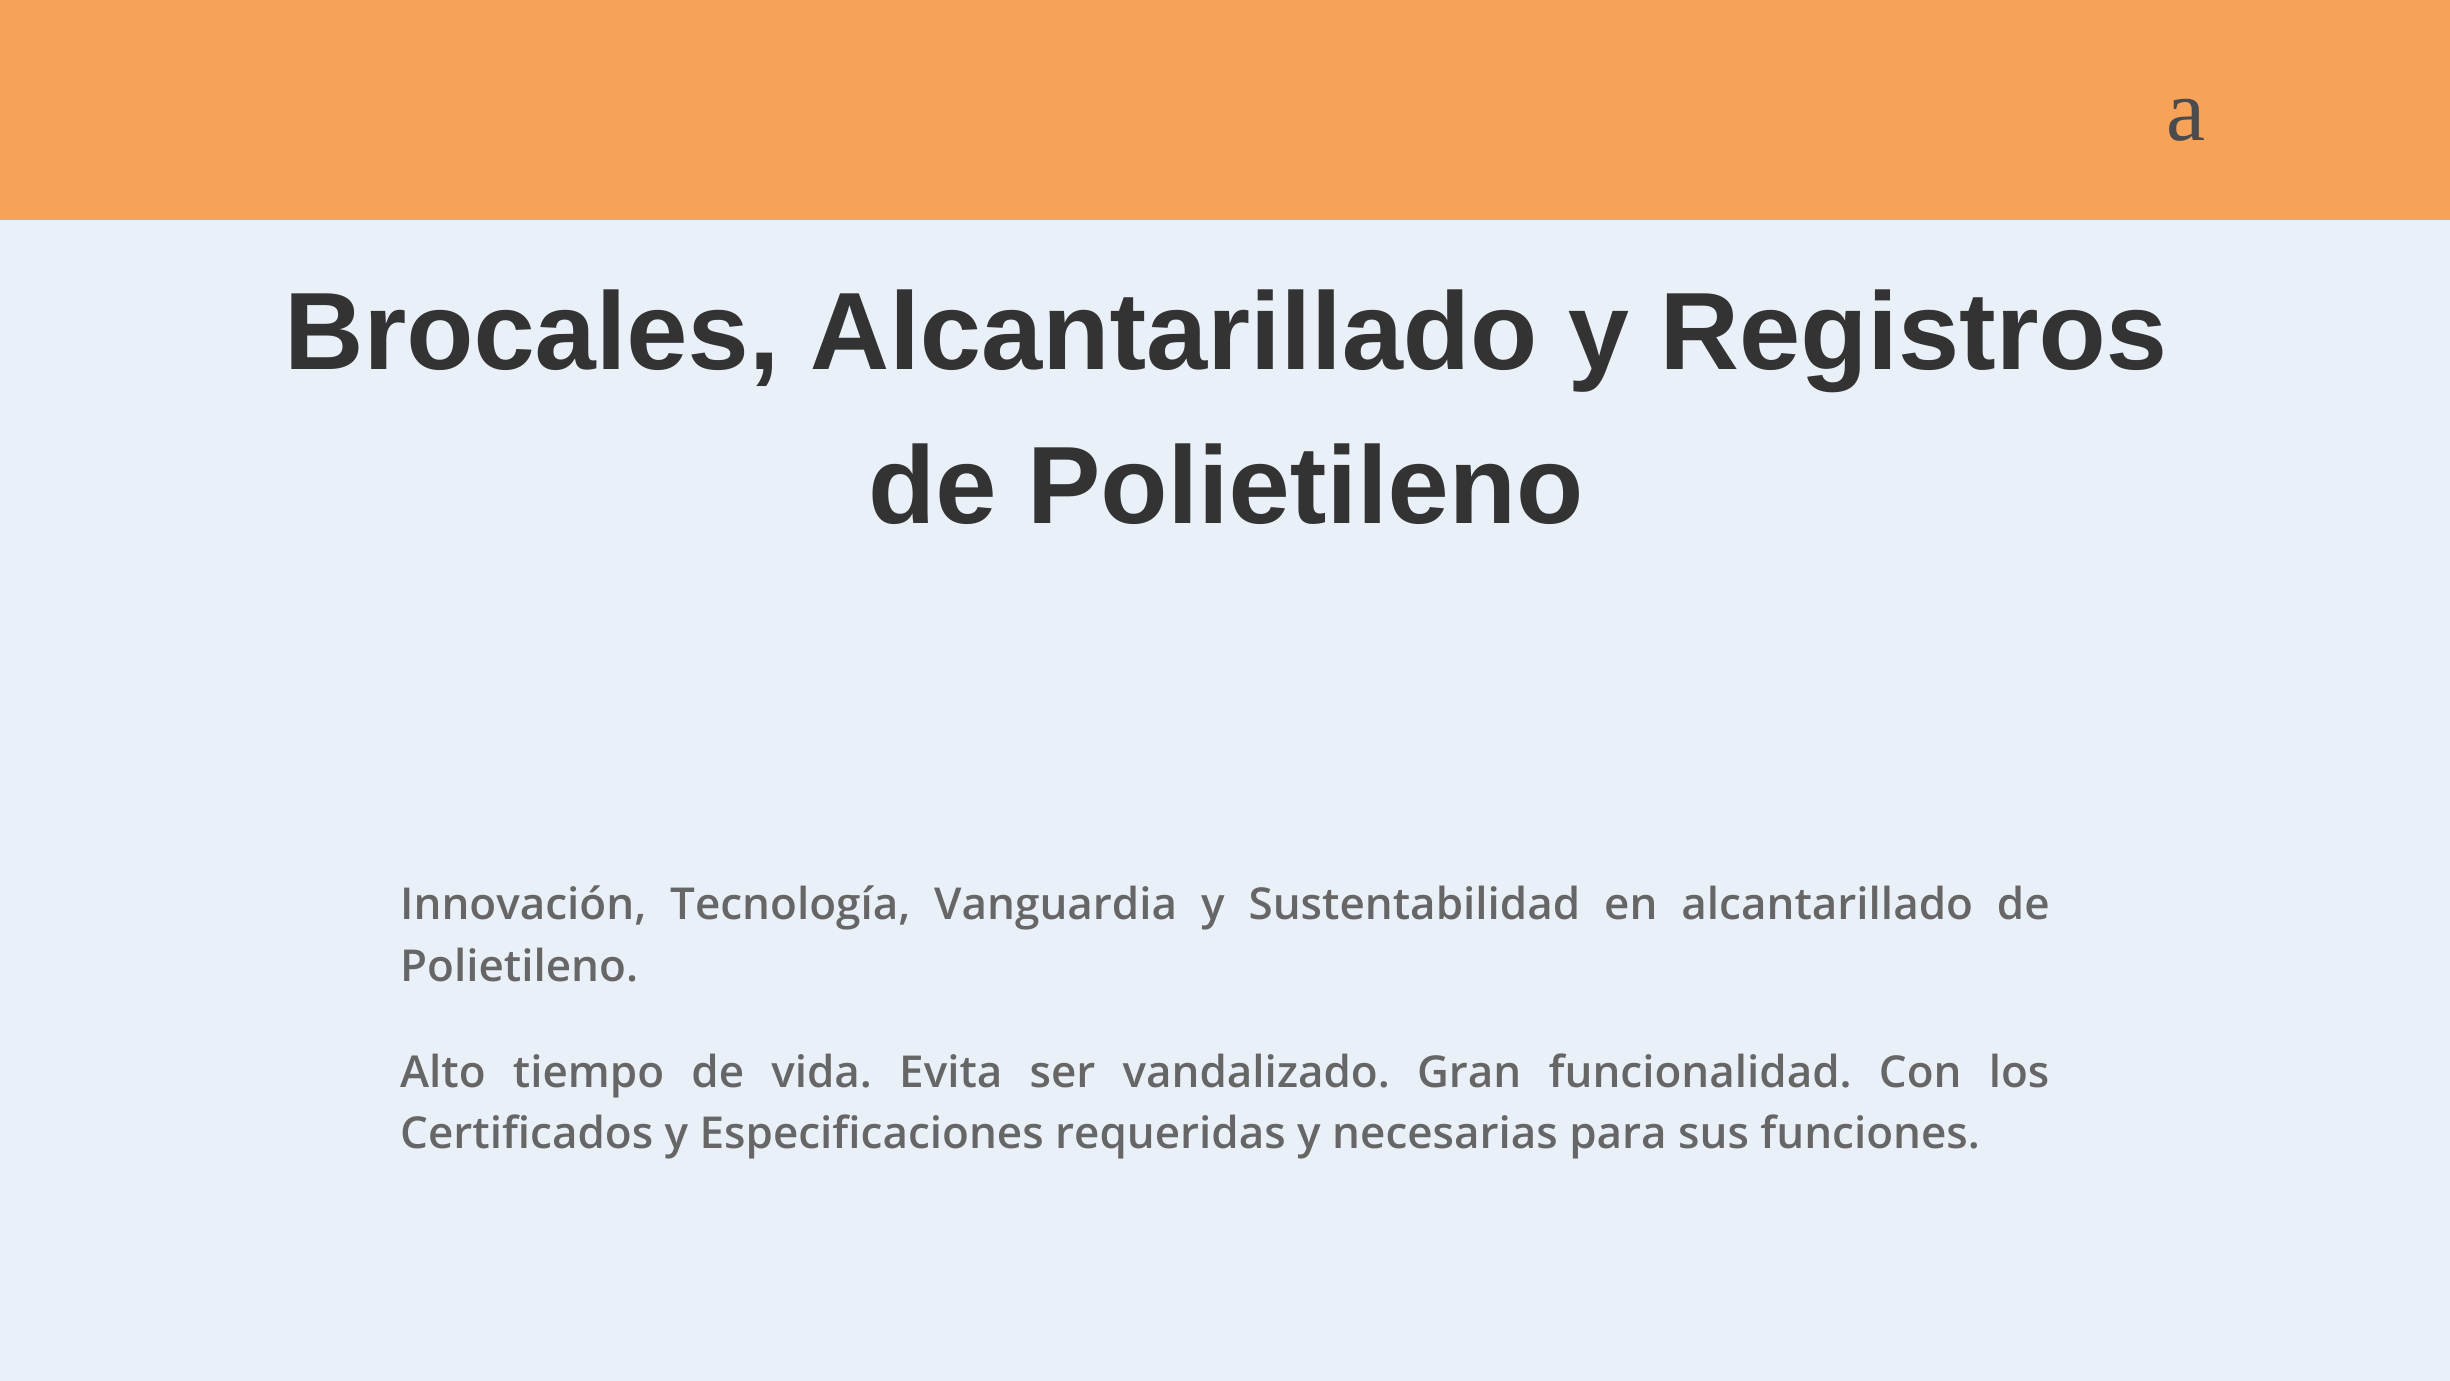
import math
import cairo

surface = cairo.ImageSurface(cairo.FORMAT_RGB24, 2450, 1381)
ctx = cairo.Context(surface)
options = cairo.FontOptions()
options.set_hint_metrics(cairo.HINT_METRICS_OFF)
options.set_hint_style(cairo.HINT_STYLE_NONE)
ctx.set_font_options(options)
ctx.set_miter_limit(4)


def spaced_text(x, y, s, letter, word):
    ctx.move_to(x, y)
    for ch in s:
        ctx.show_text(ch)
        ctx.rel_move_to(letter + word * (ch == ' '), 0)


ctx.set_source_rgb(0.914, 0.941, 0.965)
ctx.paint()
ctx.set_source_rgb(0.965, 0.635, 0.349)
ctx.rectangle(0, 0, 2450, 220)
ctx.fill()
ctx.select_font_face("Liberation Serif")
ctx.set_font_size(88)
ctx.set_source_rgb(0.294, 0.294, 0.302)
ctx.move_to(2166, 140)
ctx.show_text("a")
ctx.select_font_face("Liberation Sans", cairo.FONT_SLANT_NORMAL, cairo.FONT_WEIGHT_BOLD)
ctx.set_font_size(110)
ctx.set_source_rgb(0.2, 0.2, 0.2)
ctx.move_to(284, 369)
ctx.show_text("Brocales, Alcantarillado y Registros")
ctx.move_to(868, 523)
ctx.show_text("de Polietileno")
ctx.select_font_face("Open Sans SemiBold")
ctx.set_font_size(44)
ctx.set_source_rgb(0.4, 0.4, 0.4)
spaced_text(400, 919, "Innovación, Tecnología, Vanguardia y Sustentabilidad en alcantarillado de", 0, 12.5)
ctx.move_to(400, 981)
ctx.show_text("Polietileno.")
spaced_text(400, 1087, "Alto tiempo de vida. Evita ser vandalizado. Gran funcionalidad. Con los", 0, 15.75)
ctx.move_to(400, 1148)
ctx.show_text("Certificados y Especificaciones requeridas y necesarias para sus funciones.")
surface.write_to_png("page.png")
